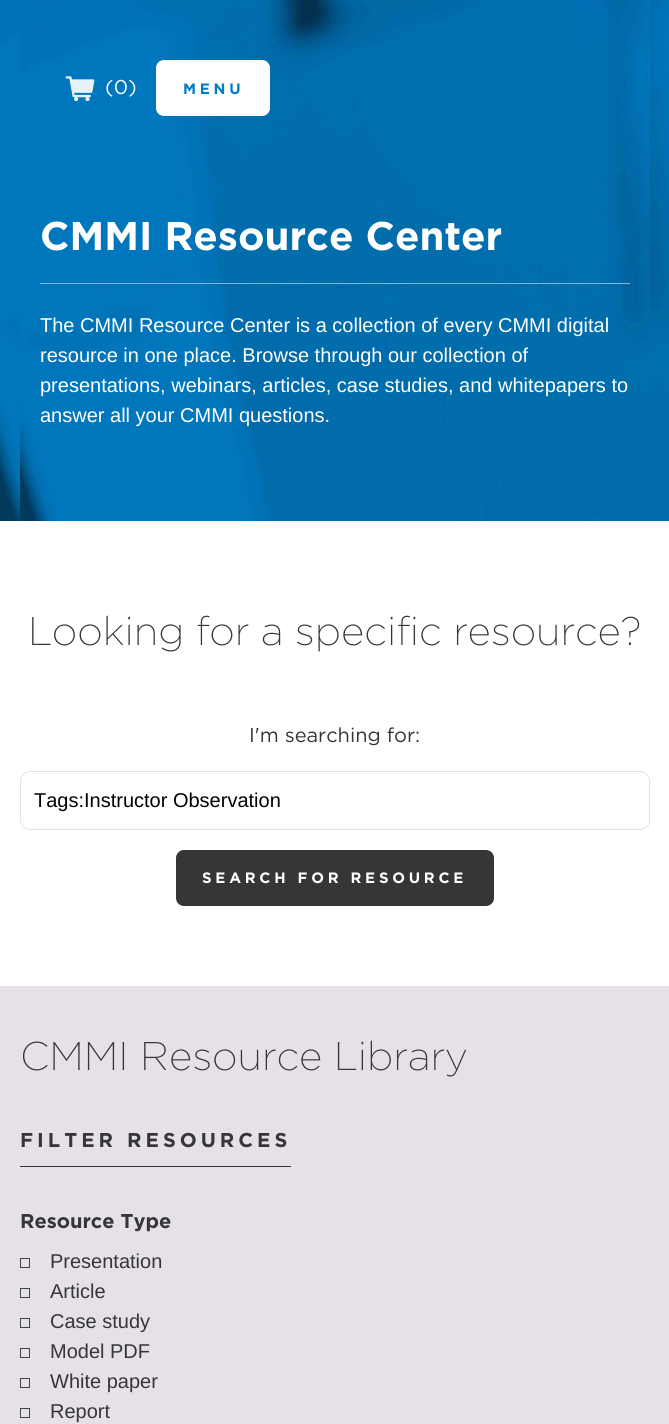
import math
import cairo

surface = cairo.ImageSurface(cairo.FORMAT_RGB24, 669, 1424)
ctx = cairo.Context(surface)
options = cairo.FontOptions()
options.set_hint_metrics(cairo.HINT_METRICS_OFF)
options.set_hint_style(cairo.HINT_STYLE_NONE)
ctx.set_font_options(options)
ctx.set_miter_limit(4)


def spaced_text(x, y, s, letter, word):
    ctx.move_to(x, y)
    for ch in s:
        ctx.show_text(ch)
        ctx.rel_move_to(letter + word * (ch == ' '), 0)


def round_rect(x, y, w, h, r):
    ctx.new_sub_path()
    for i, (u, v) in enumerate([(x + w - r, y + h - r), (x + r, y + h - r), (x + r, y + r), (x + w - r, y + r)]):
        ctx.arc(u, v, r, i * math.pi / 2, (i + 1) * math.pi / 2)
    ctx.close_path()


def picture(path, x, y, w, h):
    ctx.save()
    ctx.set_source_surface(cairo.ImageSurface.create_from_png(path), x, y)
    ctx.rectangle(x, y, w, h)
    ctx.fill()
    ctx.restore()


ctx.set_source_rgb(1, 1, 1)
ctx.paint()
picture("img1.png", 0, 0, 669, 521)
picture("img2.png", 20, 0, 630, 521)
picture("img3.png", 65, 76, 30, 25)
ctx.select_font_face("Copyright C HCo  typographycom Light")
ctx.set_font_size(20)
ctx.set_source_rgb(1, 1, 1)
ctx.move_to(105, 94)
ctx.show_text("(0)")
round_rect(158, 62, 110, 52, 6)
ctx.fill_preserve()
ctx.set_line_width(4)
ctx.stroke()
ctx.select_font_face("Copyright C HCo  typographycom")
ctx.set_font_size(15)
ctx.set_source_rgb(0, 0.49, 0.776)
spaced_text(183, 94, "MENU", 3.75, 0)
ctx.set_source_rgba(1, 1, 1, 0.5)
ctx.rectangle(40, 283, 590, 1)
ctx.fill()
ctx.set_font_size(40)
ctx.set_source_rgb(1, 1, 1)
ctx.move_to(40, 250)
ctx.show_text("CMMI Resource Center")
ctx.select_font_face("Liberation Sans")
ctx.set_font_size(20)
ctx.move_to(40, 332)
ctx.show_text("The CMMI Resource Center is a collection of every CMMI digital")
ctx.move_to(40, 362)
ctx.show_text("resource in one place. Browse through our collection of")
ctx.move_to(40, 392)
ctx.show_text("presentations, webinars, articles, case studies, and whitepapers to")
ctx.move_to(40, 422)
ctx.show_text("answer all your CMMI questions.")
ctx.set_source_rgb(0.898, 0.882, 0.902)
ctx.rectangle(0, 986, 669, 438)
ctx.fill()
ctx.select_font_face("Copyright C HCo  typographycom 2 Light")
ctx.set_font_size(40)
ctx.set_source_rgb(0.212, 0.212, 0.224)
ctx.move_to(28, 645)
ctx.show_text("Looking for a specific resource?")
ctx.select_font_face("Copyright C HCo  typographycom Light")
ctx.set_font_size(20)
ctx.move_to(249, 742)
ctx.show_text("I'm searching for:")
round_rect(20.5, 771.5, 629, 58, 9.5)
ctx.set_source_rgb(0.898, 0.882, 0.902)
ctx.set_line_width(1)
ctx.stroke()
ctx.select_font_face("Liberation Sans")
ctx.set_source_rgb(0, 0, 0)
ctx.move_to(34, 807)
ctx.show_text("Tags:Instructor Observation")
ctx.set_source_rgb(0.212, 0.212, 0.224)
round_rect(178, 852, 314, 52, 6)
ctx.fill_preserve()
ctx.set_line_width(4)
ctx.stroke()
ctx.select_font_face("Copyright C HCo  typographycom")
ctx.set_font_size(15)
ctx.set_source_rgb(1, 1, 1)
spaced_text(202, 883, "SEARCH FOR RESOURCE", 3.75, 0)
ctx.select_font_face("Copyright C HCo  typographycom 2 Light")
ctx.set_font_size(40)
ctx.set_source_rgb(0.212, 0.212, 0.224)
ctx.move_to(20, 1070)
ctx.show_text("CMMI Resource Library")
ctx.rectangle(20, 1166, 271, 1)
ctx.fill()
ctx.select_font_face("Copyright C HCo  typographycom")
ctx.set_font_size(20)
spaced_text(20, 1147, "FILTER RESOURCES", 4, 0)
ctx.move_to(20, 1228)
ctx.show_text("Resource Type")
ctx.rectangle(20.5, 1258.5, 9, 9)
ctx.set_source_rgb(0.247, 0.267, 0.267)
ctx.set_line_width(1)
ctx.stroke()
ctx.select_font_face("Liberation Sans")
ctx.set_source_rgb(0.212, 0.212, 0.224)
ctx.move_to(50, 1268)
ctx.show_text("Presentation")
ctx.rectangle(20.5, 1288.5, 9, 9)
ctx.set_source_rgb(0.247, 0.267, 0.267)
ctx.stroke()
ctx.set_source_rgb(0.212, 0.212, 0.224)
ctx.move_to(50, 1298)
ctx.show_text("Article")
ctx.rectangle(20.5, 1318.5, 9, 9)
ctx.set_source_rgb(0.247, 0.267, 0.267)
ctx.stroke()
ctx.set_source_rgb(0.212, 0.212, 0.224)
ctx.move_to(50, 1328)
ctx.show_text("Case study")
ctx.rectangle(20.5, 1348.5, 9, 9)
ctx.set_source_rgb(0.247, 0.267, 0.267)
ctx.stroke()
ctx.set_source_rgb(0.212, 0.212, 0.224)
ctx.move_to(50, 1358)
ctx.show_text("Model PDF")
ctx.rectangle(20.5, 1378.5, 9, 9)
ctx.set_source_rgb(0.247, 0.267, 0.267)
ctx.stroke()
ctx.set_source_rgb(0.212, 0.212, 0.224)
ctx.move_to(50, 1388)
ctx.show_text("White paper")
ctx.rectangle(20.5, 1408.5, 9, 9)
ctx.set_source_rgb(0.247, 0.267, 0.267)
ctx.stroke()
ctx.set_source_rgb(0.212, 0.212, 0.224)
ctx.move_to(50, 1418)
ctx.show_text("Report")
surface.write_to_png("page.png")
